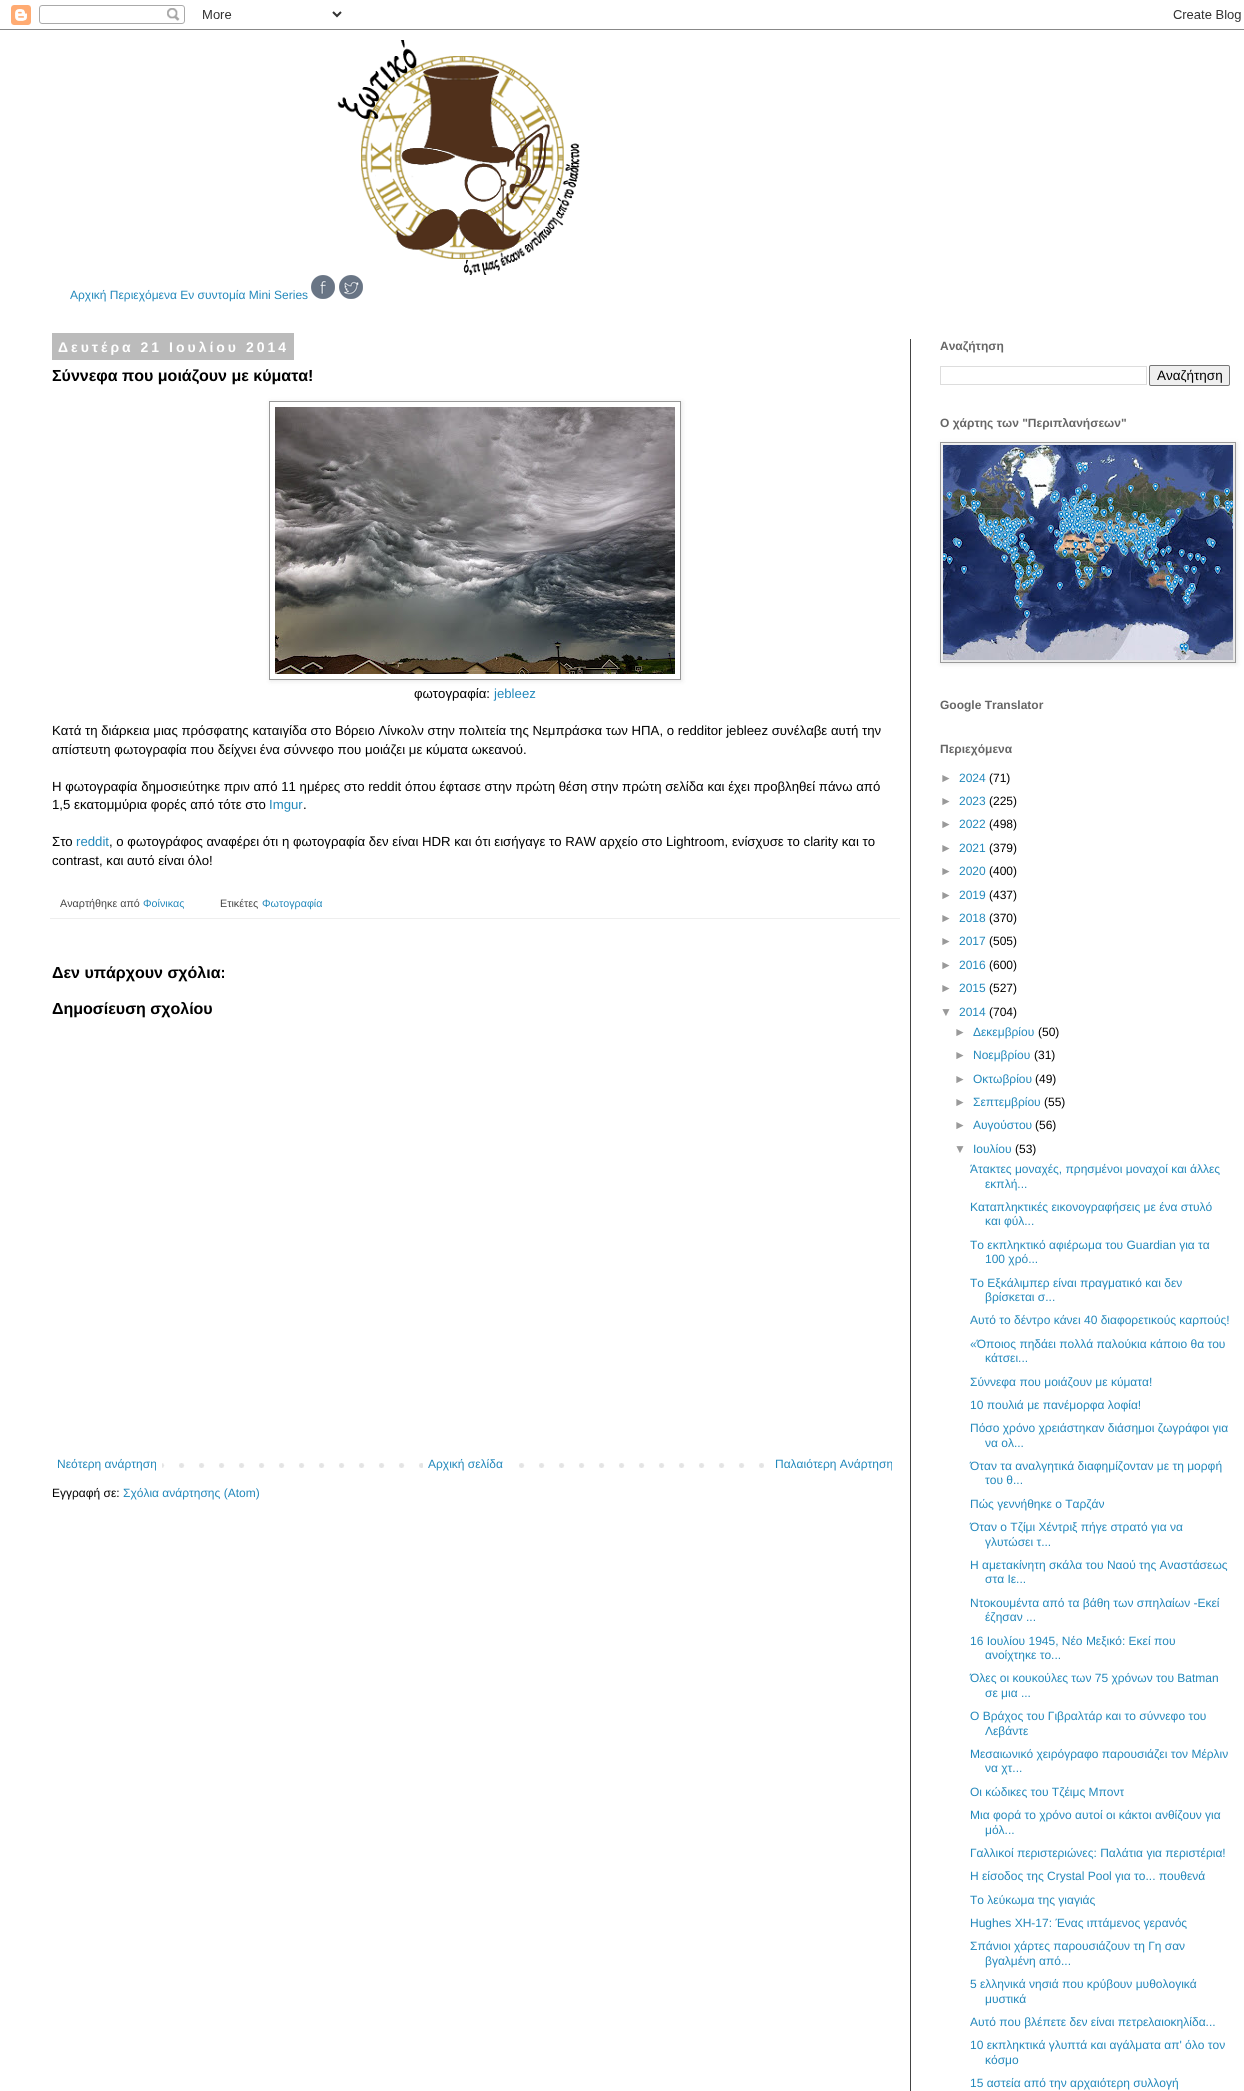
import math
import cairo

surface = cairo.ImageSurface(cairo.FORMAT_RGB24, 1244, 2091)
ctx = cairo.Context(surface)
options = cairo.FontOptions()
options.set_hint_metrics(cairo.HINT_METRICS_OFF)
options.set_hint_style(cairo.HINT_STYLE_NONE)
ctx.set_font_options(options)
ctx.set_miter_limit(4)


def spaced_text(x, y, s, letter, word):
    ctx.move_to(x, y)
    for ch in s:
        ctx.show_text(ch)
        ctx.rel_move_to(letter + word * (ch == ' '), 0)


def round_rect(x, y, w, h, r):
    ctx.new_sub_path()
    for i, (u, v) in enumerate([(x + w - r, y + h - r), (x + r, y + h - r), (x + r, y + r), (x + w - r, y + r)]):
        ctx.arc(u, v, r, i * math.pi / 2, (i + 1) * math.pi / 2)
    ctx.close_path()


def shadow(x, y, w, h, r, blur, alpha):
    ctx.push_group_with_content(cairo.CONTENT_ALPHA)
    ctx.set_operator(cairo.OPERATOR_SOURCE)
    for i in range(15, -16, -2):
        e = blur * i / 6
        if min(w, h) + 2 * e > 0:
            ctx.set_source_rgba(0, 0, 0, alpha * math.erfc((i - 1) / 8.5) / 2)
            round_rect(x - e, y - e, w + 2 * e, h + 2 * e, max(0, min(r + e + blur * .6, min(w, h) / 2 + e)))
            ctx.fill()
    ctx.mask(ctx.pop_group())


def picture(path, x, y, w, h):
    ctx.save()
    ctx.set_source_surface(cairo.ImageSurface.create_from_png(path), x, y)
    ctx.rectangle(x, y, w, h)
    ctx.fill()
    ctx.restore()


ctx.set_source_rgb(1, 1, 1)
ctx.paint()
picture("img1.png", 0, 5, 1244, 25)
picture("img2.png", 337, 40, 243, 235)
ctx.select_font_face("Liberation Sans")
ctx.set_font_size(12)
ctx.set_source_rgb(0.133, 0.533, 0.733)
ctx.move_to(70, 299)
ctx.show_text("Αρχική Περιεχόμενα Εν συντομία Mini Series")
picture("img3.png", 311, 275, 24, 24)
picture("img4.png", 339, 275, 24, 24)
ctx.set_source_rgb(0.267, 0.267, 0.267)
ctx.rectangle(910, 339, 1, 1752)
ctx.fill()
ctx.set_source_rgb(0.733, 0.733, 0.733)
ctx.rectangle(52, 333, 242, 27)
ctx.fill()
ctx.select_font_face("Liberation Sans", cairo.FONT_SLANT_NORMAL, cairo.FONT_WEIGHT_BOLD)
ctx.set_font_size(14)
ctx.set_source_rgb(1, 1, 1)
spaced_text(58, 352, "Δευτέρα 21 Ιουλίου 2014", 3, 0)
ctx.set_font_size(16)
ctx.set_source_rgb(0, 0, 0)
ctx.move_to(52, 381)
ctx.show_text("Σύννεφα που μοιάζουν με κύματα!")
ctx.save()
ctx.set_fill_rule(cairo.FILL_RULE_EVEN_ODD)
ctx.new_path()
ctx.move_to(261, 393)
ctx.line_to(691, 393)
ctx.line_to(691, 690)
ctx.line_to(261, 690)
ctx.close_path()
ctx.move_to(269, 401)
ctx.line_to(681, 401)
ctx.line_to(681, 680)
ctx.line_to(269, 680)
ctx.close_path()
ctx.clip()
ctx.set_source_rgb(0, 0, 0)
shadow(270, 402, 412, 279, 0, 2.5, 0.1)
ctx.restore()
ctx.rectangle(269.5, 401.5, 411, 278)
ctx.set_source_rgb(0.6, 0.6, 0.6)
ctx.set_line_width(1)
ctx.stroke()
picture("img5.png", 275, 407, 400, 267)
ctx.select_font_face("Liberation Sans")
ctx.set_font_size(13.2)
ctx.set_source_rgb(0, 0, 0)
ctx.move_to(414, 698)
ctx.show_text("φωτογραφία:")
ctx.set_source_rgb(0.133, 0.533, 0.733)
ctx.move_to(494, 698)
ctx.show_text("jebleez")
ctx.set_source_rgb(0, 0, 0)
ctx.move_to(52, 735)
ctx.show_text("Κατά τη διάρκεια μιας πρόσφατης καταιγίδα στο Βόρειο Λίνκολν στην πολιτεία της Νεμπράσκα των ΗΠΑ, ο redditor jebleez συνέλαβε αυτή την")
ctx.move_to(52, 754)
ctx.show_text("απίστευτη φωτογραφία που δείχνει ένα σύννεφο που μοιάζει με κύματα ωκεανού.")
ctx.move_to(52, 791)
ctx.show_text("Η φωτογραφία δημοσιεύτηκε πριν από 11 ημέρες στο reddit όπου έφτασε στην πρώτη θέση στην πρώτη σελίδα και έχει προβληθεί πάνω από")
ctx.move_to(52, 809)
ctx.show_text("1,5 εκατομμύρια φορές από τότε στο")
ctx.set_source_rgb(0.133, 0.533, 0.733)
ctx.move_to(269, 809)
ctx.show_text("Imgur")
ctx.set_source_rgb(0, 0, 0)
ctx.move_to(303, 809)
ctx.show_text(".")
ctx.move_to(52, 846)
ctx.show_text("Στο")
ctx.set_source_rgb(0.133, 0.533, 0.733)
ctx.move_to(76, 846)
ctx.show_text("reddit")
ctx.set_source_rgb(0, 0, 0)
ctx.move_to(109, 846)
ctx.show_text(", ο φωτογράφος αναφέρει ότι η φωτογραφία δεν είναι HDR και ότι εισήγαγε το RAW αρχείο στο Lightroom, ενίσχυσε το clarity και το")
ctx.move_to(52, 865)
ctx.show_text("contrast, και αυτό είναι όλο!")
ctx.set_source_rgb(0.933, 0.933, 0.933)
ctx.rectangle(50, 918, 850, 1)
ctx.fill()
ctx.set_font_size(10.75)
ctx.set_source_rgb(0.267, 0.267, 0.267)
ctx.move_to(60, 907)
ctx.show_text("Αναρτήθηκε από")
ctx.set_source_rgb(0.133, 0.533, 0.733)
ctx.move_to(143, 907)
ctx.show_text("Φοίνικας")
ctx.set_source_rgb(0.267, 0.267, 0.267)
ctx.move_to(220, 907)
ctx.show_text("Ετικέτες")
ctx.set_source_rgb(0.133, 0.533, 0.733)
ctx.move_to(262, 907)
ctx.show_text("Φωτογραφία")
ctx.select_font_face("Liberation Sans", cairo.FONT_SLANT_NORMAL, cairo.FONT_WEIGHT_BOLD)
ctx.set_font_size(16)
ctx.set_source_rgb(0, 0, 0)
ctx.move_to(52, 978)
ctx.show_text("Δεν υπάρχουν σχόλια:")
ctx.move_to(52, 1014)
ctx.show_text("Δημοσίευση σχολίου")
picture("img6.png", 162, 1463, 602, 5)
ctx.select_font_face("Liberation Sans")
ctx.set_font_size(12)
ctx.set_source_rgb(0.133, 0.533, 0.733)
ctx.move_to(57, 1468)
ctx.show_text("Νεότερη ανάρτηση")
ctx.set_source_rgb(1, 1, 1)
ctx.rectangle(423, 1463, 82, 5)
ctx.fill()
ctx.set_source_rgb(0.133, 0.533, 0.733)
ctx.move_to(428, 1468)
ctx.show_text("Αρχική σελίδα")
ctx.move_to(775, 1468)
ctx.show_text("Παλαιότερη Ανάρτηση")
ctx.set_source_rgb(0, 0, 0)
ctx.move_to(52, 1497)
ctx.show_text("Εγγραφή σε:")
ctx.set_source_rgb(0.133, 0.533, 0.733)
ctx.move_to(123, 1497)
ctx.show_text("Σχόλια ανάρτησης (Atom)")
ctx.select_font_face("Liberation Sans", cairo.FONT_SLANT_NORMAL, cairo.FONT_WEIGHT_BOLD)
ctx.set_source_rgb(0.4, 0.4, 0.4)
ctx.move_to(940, 350)
ctx.show_text("Αναζήτηση")
ctx.rectangle(940.5, 366.5, 206, 18)
ctx.set_source_rgb(0.867, 0.867, 0.867)
ctx.stroke()
ctx.set_source_rgb(0.937, 0.937, 0.937)
round_rect(1149.5, 365.5, 80, 20, 1.5)
ctx.fill_preserve()
ctx.set_source_rgb(0.463, 0.463, 0.463)
ctx.stroke()
ctx.select_font_face("Liberation Sans")
ctx.set_font_size(13.5)
ctx.set_source_rgb(0, 0, 0)
ctx.move_to(1157, 380)
ctx.show_text("Αναζήτηση")
ctx.select_font_face("Liberation Sans", cairo.FONT_SLANT_NORMAL, cairo.FONT_WEIGHT_BOLD)
ctx.set_font_size(12)
ctx.set_source_rgb(0.4, 0.4, 0.4)
ctx.move_to(940, 427)
ctx.show_text("Ο χάρτης των \"Περιπλανήσεων\"")
ctx.set_source_rgb(0, 0, 0)
shadow(941, 443, 296, 221, 0, 2.5, 0.1)
ctx.rectangle(940.5, 442.5, 295, 220)
ctx.set_source_rgb(0.6, 0.6, 0.6)
ctx.stroke()
picture("img7.png", 943, 445, 290, 215)
ctx.set_source_rgb(0.4, 0.4, 0.4)
ctx.move_to(940, 709)
ctx.show_text("Google Translator")
ctx.move_to(940, 753)
ctx.show_text("Περιεχόμενα")
ctx.select_font_face("Liberation Sans")
ctx.set_source_rgb(0.6, 0.6, 0.6)
ctx.move_to(940, 782)
ctx.show_text("►")
ctx.set_source_rgb(0.133, 0.533, 0.733)
ctx.move_to(959, 782)
ctx.show_text("2024")
ctx.set_source_rgb(0, 0, 0)
ctx.move_to(989, 782)
ctx.show_text("(71)")
ctx.set_source_rgb(0.6, 0.6, 0.6)
ctx.move_to(940, 805)
ctx.show_text("►")
ctx.set_source_rgb(0.133, 0.533, 0.733)
ctx.move_to(959, 805)
ctx.show_text("2023")
ctx.set_source_rgb(0, 0, 0)
ctx.move_to(989, 805)
ctx.show_text("(225)")
ctx.set_source_rgb(0.6, 0.6, 0.6)
ctx.move_to(940, 828)
ctx.show_text("►")
ctx.set_source_rgb(0.133, 0.533, 0.733)
ctx.move_to(959, 828)
ctx.show_text("2022")
ctx.set_source_rgb(0, 0, 0)
ctx.move_to(989, 828)
ctx.show_text("(498)")
ctx.set_source_rgb(0.6, 0.6, 0.6)
ctx.move_to(940, 852)
ctx.show_text("►")
ctx.set_source_rgb(0.133, 0.533, 0.733)
ctx.move_to(959, 852)
ctx.show_text("2021")
ctx.set_source_rgb(0, 0, 0)
ctx.move_to(989, 852)
ctx.show_text("(379)")
ctx.set_source_rgb(0.6, 0.6, 0.6)
ctx.move_to(940, 875)
ctx.show_text("►")
ctx.set_source_rgb(0.133, 0.533, 0.733)
ctx.move_to(959, 875)
ctx.show_text("2020")
ctx.set_source_rgb(0, 0, 0)
ctx.move_to(989, 875)
ctx.show_text("(400)")
ctx.set_source_rgb(0.6, 0.6, 0.6)
ctx.move_to(940, 899)
ctx.show_text("►")
ctx.set_source_rgb(0.133, 0.533, 0.733)
ctx.move_to(959, 899)
ctx.show_text("2019")
ctx.set_source_rgb(0, 0, 0)
ctx.move_to(989, 899)
ctx.show_text("(437)")
ctx.set_source_rgb(0.6, 0.6, 0.6)
ctx.move_to(940, 922)
ctx.show_text("►")
ctx.set_source_rgb(0.133, 0.533, 0.733)
ctx.move_to(959, 922)
ctx.show_text("2018")
ctx.set_source_rgb(0, 0, 0)
ctx.move_to(989, 922)
ctx.show_text("(370)")
ctx.set_source_rgb(0.6, 0.6, 0.6)
ctx.move_to(940, 945)
ctx.show_text("►")
ctx.set_source_rgb(0.133, 0.533, 0.733)
ctx.move_to(959, 945)
ctx.show_text("2017")
ctx.set_source_rgb(0, 0, 0)
ctx.move_to(989, 945)
ctx.show_text("(505)")
ctx.set_source_rgb(0.6, 0.6, 0.6)
ctx.move_to(940, 969)
ctx.show_text("►")
ctx.set_source_rgb(0.133, 0.533, 0.733)
ctx.move_to(959, 969)
ctx.show_text("2016")
ctx.set_source_rgb(0, 0, 0)
ctx.move_to(989, 969)
ctx.show_text("(600)")
ctx.set_source_rgb(0.6, 0.6, 0.6)
ctx.move_to(940, 992)
ctx.show_text("►")
ctx.set_source_rgb(0.133, 0.533, 0.733)
ctx.move_to(959, 992)
ctx.show_text("2015")
ctx.set_source_rgb(0, 0, 0)
ctx.move_to(989, 992)
ctx.show_text("(527)")
ctx.set_source_rgb(0.6, 0.6, 0.6)
ctx.move_to(940, 1016)
ctx.show_text("▼")
ctx.set_source_rgb(0.133, 0.533, 0.733)
ctx.move_to(959, 1016)
ctx.show_text("2014")
ctx.set_source_rgb(0, 0, 0)
ctx.move_to(989, 1016)
ctx.show_text("(704)")
ctx.set_source_rgb(0.6, 0.6, 0.6)
ctx.move_to(954, 1036)
ctx.show_text("►")
ctx.set_source_rgb(0.133, 0.533, 0.733)
ctx.move_to(973, 1036)
ctx.show_text("Δεκεμβρίου")
ctx.set_source_rgb(0, 0, 0)
ctx.move_to(1038, 1036)
ctx.show_text("(50)")
ctx.set_source_rgb(0.6, 0.6, 0.6)
ctx.move_to(954, 1059)
ctx.show_text("►")
ctx.set_source_rgb(0.133, 0.533, 0.733)
ctx.move_to(973, 1059)
ctx.show_text("Νοεμβρίου")
ctx.set_source_rgb(0, 0, 0)
ctx.move_to(1034, 1059)
ctx.show_text("(31)")
ctx.set_source_rgb(0.6, 0.6, 0.6)
ctx.move_to(954, 1083)
ctx.show_text("►")
ctx.set_source_rgb(0.133, 0.533, 0.733)
ctx.move_to(973, 1083)
ctx.show_text("Οκτωβρίου")
ctx.set_source_rgb(0, 0, 0)
ctx.move_to(1035, 1083)
ctx.show_text("(49)")
ctx.set_source_rgb(0.6, 0.6, 0.6)
ctx.move_to(954, 1106)
ctx.show_text("►")
ctx.set_source_rgb(0.133, 0.533, 0.733)
ctx.move_to(973, 1106)
ctx.show_text("Σεπτεμβρίου")
ctx.set_source_rgb(0, 0, 0)
ctx.move_to(1044, 1106)
ctx.show_text("(55)")
ctx.set_source_rgb(0.6, 0.6, 0.6)
ctx.move_to(954, 1129)
ctx.show_text("►")
ctx.set_source_rgb(0.133, 0.533, 0.733)
ctx.move_to(973, 1129)
ctx.show_text("Αυγούστου")
ctx.set_source_rgb(0, 0, 0)
ctx.move_to(1035, 1129)
ctx.show_text("(56)")
ctx.set_source_rgb(0.6, 0.6, 0.6)
ctx.move_to(954, 1153)
ctx.show_text("▼")
ctx.set_source_rgb(0.133, 0.533, 0.733)
ctx.move_to(973, 1153)
ctx.show_text("Ιουλίου")
ctx.set_source_rgb(0, 0, 0)
ctx.move_to(1015, 1153)
ctx.show_text("(53)")
ctx.set_source_rgb(0.133, 0.533, 0.733)
ctx.move_to(970, 1173)
ctx.show_text("Άτακτες μοναχές, πρησμένοι μοναχοί και άλλες")
ctx.move_to(985, 1188)
ctx.show_text("εκπλή...")
ctx.move_to(970, 1211)
ctx.show_text("Καταπληκτικές εικονογραφήσεις με ένα στυλό")
ctx.move_to(985, 1225)
ctx.show_text("και φύλ...")
ctx.move_to(970, 1249)
ctx.show_text("Το εκπληκτικό αφιέρωμα του Guardian για τα")
ctx.move_to(985, 1263)
ctx.show_text("100 χρό...")
ctx.move_to(970, 1287)
ctx.show_text("Το Εξκάλιμπερ είναι πραγματικό και δεν")
ctx.move_to(985, 1301)
ctx.show_text("βρίσκεται σ...")
ctx.move_to(970, 1324)
ctx.show_text("Αυτό το δέντρο κάνει 40 διαφορετικούς καρπούς!")
ctx.move_to(970, 1348)
ctx.show_text("«Όποιος πηδάει πολλά παλούκια κάποιο θα του")
ctx.move_to(985, 1362)
ctx.show_text("κάτσει...")
ctx.move_to(970, 1386)
ctx.show_text("Σύννεφα που μοιάζουν με κύματα!")
ctx.move_to(970, 1409)
ctx.show_text("10 πουλιά με πανέμορφα λοφία!")
ctx.move_to(970, 1432)
ctx.show_text("Πόσο χρόνο χρειάστηκαν διάσημοι ζωγράφοι για")
ctx.move_to(985, 1447)
ctx.show_text("να ολ...")
ctx.move_to(970, 1470)
ctx.show_text("Όταν τα αναλγητικά διαφημίζονταν με τη μορφή")
ctx.move_to(985, 1484)
ctx.show_text("του θ...")
ctx.move_to(970, 1508)
ctx.show_text("Πώς γεννήθηκε ο Ταρζάν")
ctx.move_to(970, 1531)
ctx.show_text("Όταν ο Τζίμι Χέντριξ πήγε στρατό για να")
ctx.move_to(985, 1546)
ctx.show_text("γλυτώσει τ...")
ctx.move_to(970, 1569)
ctx.show_text("Η αμετακίνητη σκάλα του Ναού της Αναστάσεως")
ctx.move_to(985, 1583)
ctx.show_text("στα Ιε...")
ctx.move_to(970, 1607)
ctx.show_text("Ντοκουμέντα από τα βάθη των σπηλαίων -Εκεί")
ctx.move_to(985, 1621)
ctx.show_text("έζησαν ...")
ctx.move_to(970, 1645)
ctx.show_text("16 Ιουλίου 1945, Νέο Μεξικό: Εκεί που")
ctx.move_to(985, 1659)
ctx.show_text("ανοίχτηκε το...")
ctx.move_to(970, 1682)
ctx.show_text("Όλες οι κουκούλες των 75 χρόνων του Batman")
ctx.move_to(985, 1697)
ctx.show_text("σε μια ...")
ctx.move_to(970, 1720)
ctx.show_text("Ο Βράχος του Γιβραλτάρ και το σύννεφο του")
ctx.move_to(985, 1735)
ctx.show_text("Λεβάντε")
ctx.move_to(970, 1758)
ctx.show_text("Μεσαιωνικό χειρόγραφο παρουσιάζει τον Μέρλιν")
ctx.move_to(985, 1772)
ctx.show_text("να χτ...")
ctx.move_to(970, 1796)
ctx.show_text("Οι κώδικες του Τζέιμς Μποντ")
ctx.move_to(970, 1819)
ctx.show_text("Μια φορά το χρόνο αυτοί οι κάκτοι ανθίζουν για")
ctx.move_to(985, 1834)
ctx.show_text("μόλ...")
ctx.move_to(970, 1857)
ctx.show_text("Γαλλικοί περιστεριώνες: Παλάτια για περιστέρια!")
ctx.move_to(970, 1880)
ctx.show_text("Η είσοδος της Crystal Pool για το... πουθενά")
ctx.move_to(970, 1904)
ctx.show_text("Το λεύκωμα της γιαγιάς")
ctx.move_to(970, 1927)
ctx.show_text("Hughes XH-17: Ένας ιπτάμενος γερανός")
ctx.move_to(970, 1950)
ctx.show_text("Σπάνιοι χάρτες παρουσιάζουν τη Γη σαν")
ctx.move_to(985, 1965)
ctx.show_text("βγαλμένη από...")
ctx.move_to(970, 1988)
ctx.show_text("5 ελληνικά νησιά που κρύβουν μυθολογικά")
ctx.move_to(985, 2003)
ctx.show_text("μυστικά")
ctx.move_to(970, 2026)
ctx.show_text("Αυτό που βλέπετε δεν είναι πετρελαιοκηλίδα...")
ctx.move_to(970, 2049)
ctx.show_text("10 εκπληκτικά γλυπτά και αγάλματα απ' όλο τον")
ctx.move_to(985, 2064)
ctx.show_text("κόσμο")
ctx.move_to(970, 2087)
ctx.show_text("15 αστεία από την αρχαιότερη συλλογή")
surface.write_to_png("page.png")
